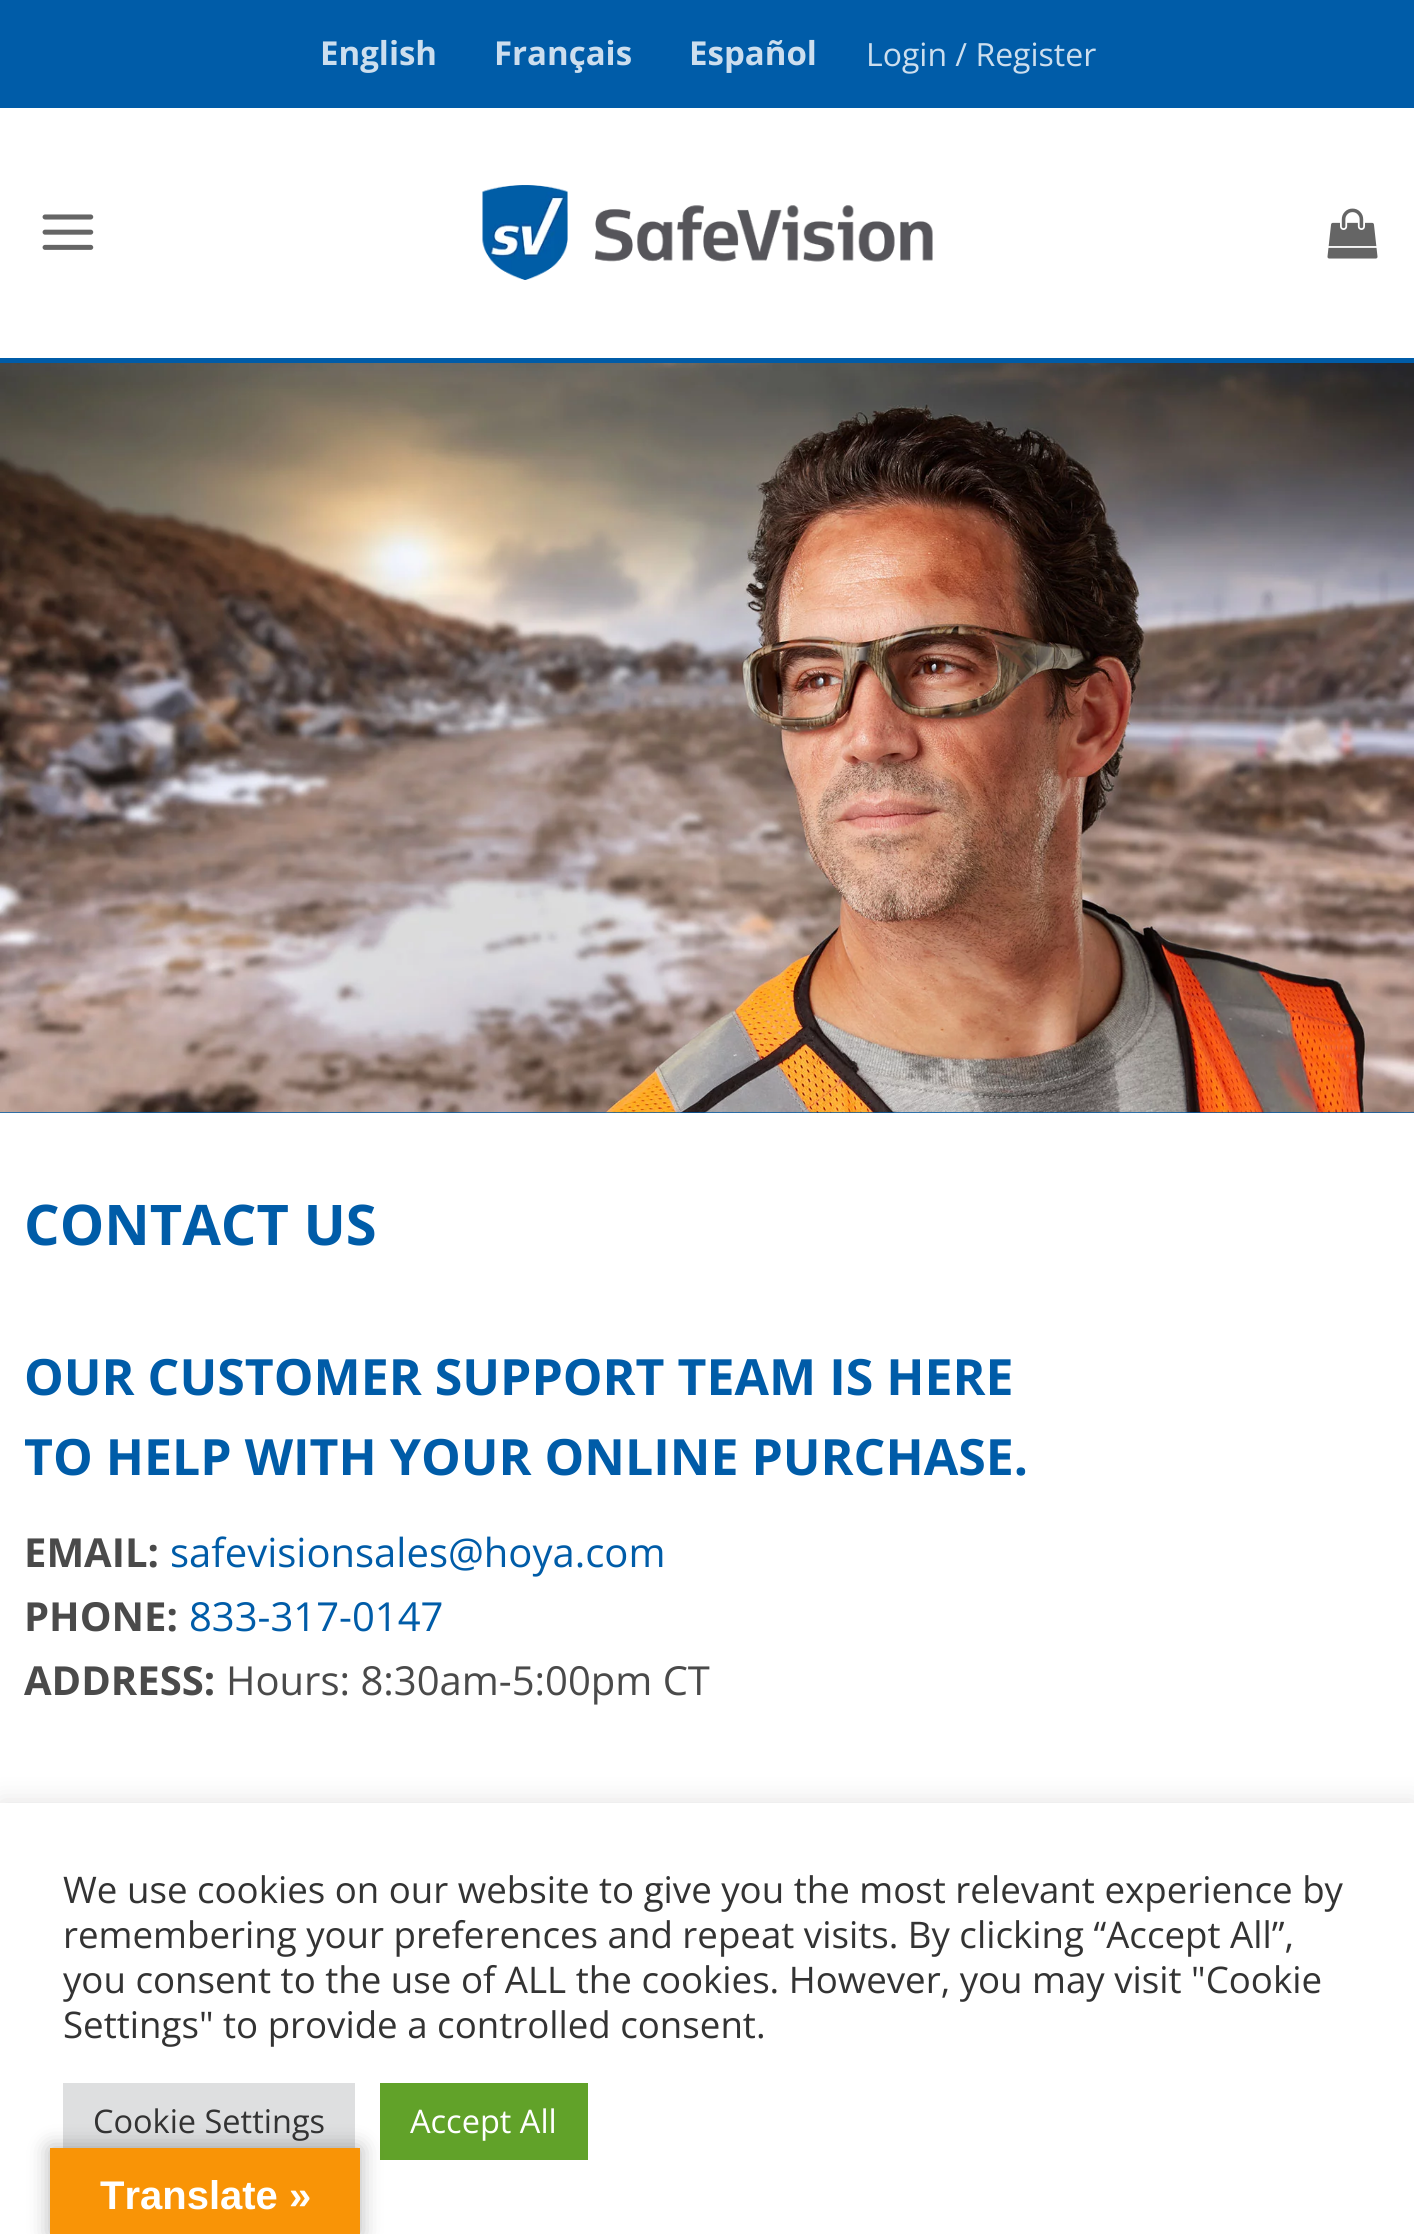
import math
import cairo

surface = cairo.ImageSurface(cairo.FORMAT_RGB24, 1414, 2234)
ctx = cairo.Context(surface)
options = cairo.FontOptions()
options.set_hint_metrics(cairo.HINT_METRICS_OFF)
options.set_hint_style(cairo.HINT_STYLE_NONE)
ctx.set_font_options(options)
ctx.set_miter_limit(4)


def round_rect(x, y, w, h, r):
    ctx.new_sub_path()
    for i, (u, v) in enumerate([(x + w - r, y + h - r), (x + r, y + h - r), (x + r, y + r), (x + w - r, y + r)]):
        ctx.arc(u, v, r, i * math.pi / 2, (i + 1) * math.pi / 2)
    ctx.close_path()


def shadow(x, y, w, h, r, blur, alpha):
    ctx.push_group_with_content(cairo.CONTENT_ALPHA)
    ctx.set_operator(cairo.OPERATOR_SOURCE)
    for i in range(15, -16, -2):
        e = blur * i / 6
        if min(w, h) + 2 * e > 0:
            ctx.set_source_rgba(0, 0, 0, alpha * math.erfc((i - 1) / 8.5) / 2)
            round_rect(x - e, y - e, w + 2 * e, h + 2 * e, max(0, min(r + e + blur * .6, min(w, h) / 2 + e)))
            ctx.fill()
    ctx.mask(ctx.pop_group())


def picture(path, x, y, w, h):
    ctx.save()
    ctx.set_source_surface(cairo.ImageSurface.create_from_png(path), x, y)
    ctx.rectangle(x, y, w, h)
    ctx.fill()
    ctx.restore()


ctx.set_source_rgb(1, 1, 1)
ctx.paint()
ctx.set_source_rgb(0, 0.361, 0.659)
ctx.rectangle(0, 358, 1414, 5)
ctx.fill()
ctx.rectangle(0, 0, 1414, 108)
ctx.fill()
ctx.select_font_face("Open Sans", cairo.FONT_SLANT_NORMAL, cairo.FONT_WEIGHT_BOLD)
ctx.set_font_size(33)
ctx.set_source_rgb(0.8, 0.871, 0.933)
ctx.move_to(320, 65)
ctx.show_text("English")
ctx.move_to(494, 65)
ctx.show_text("Français")
ctx.move_to(689, 65)
ctx.show_text("Español")
ctx.select_font_face("Open Sans")
ctx.set_font_size(32)
ctx.move_to(866, 66)
ctx.show_text("Login / Register")
picture("img1.png", 42, 214, 52, 36)
picture("img2.png", 482, 185, 451, 95)
picture("img3.png", 1327, 208, 51, 51)
ctx.set_source_rgb(0, 0.361, 0.659)
ctx.rectangle(0, 1112, 1414, 1)
ctx.fill()
picture("img4.png", 0, 363, 1414, 750)
ctx.select_font_face("Open Sans", cairo.FONT_SLANT_NORMAL, cairo.FONT_WEIGHT_BOLD)
ctx.set_font_size(56)
ctx.move_to(24, 1245)
ctx.show_text("CONTACT US")
ctx.set_font_size(50)
ctx.move_to(24, 1395)
ctx.show_text("OUR CUSTOMER SUPPORT TEAM IS HERE")
ctx.move_to(24, 1475)
ctx.show_text("TO HELP WITH YOUR ONLINE PURCHASE.")
ctx.set_font_size(40)
ctx.set_source_rgb(0.29, 0.29, 0.29)
ctx.move_to(24, 1567)
ctx.show_text("EMAIL:")
ctx.select_font_face("Open Sans")
ctx.set_source_rgb(0, 0.361, 0.659)
ctx.move_to(170, 1567)
ctx.show_text("safevisionsales@hoya.com")
ctx.select_font_face("Open Sans", cairo.FONT_SLANT_NORMAL, cairo.FONT_WEIGHT_BOLD)
ctx.set_source_rgb(0.29, 0.29, 0.29)
ctx.move_to(24, 1631)
ctx.show_text("PHONE:")
ctx.select_font_face("Open Sans")
ctx.set_source_rgb(0, 0.361, 0.659)
ctx.move_to(189, 1631)
ctx.show_text("833-317-0147")
ctx.select_font_face("Open Sans", cairo.FONT_SLANT_NORMAL, cairo.FONT_WEIGHT_BOLD)
ctx.set_source_rgb(0.29, 0.29, 0.29)
ctx.move_to(24, 1695)
ctx.show_text("ADDRESS:")
ctx.select_font_face("Open Sans")
ctx.move_to(226, 1695)
ctx.show_text("Hours: 8:30am-5:00pm CT")
ctx.set_source_rgb(0.675, 0.671, 0.671)
shadow(0, 1800, 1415, 433, 0, 12.5, 0.3)
ctx.set_source_rgb(1, 1, 1)
ctx.rectangle(0, 1803, 1414, 431)
ctx.fill()
ctx.set_font_size(36.65)
ctx.set_source_rgb(0.2, 0.2, 0.2)
ctx.move_to(63, 1903)
ctx.show_text("We use cookies on our website to give you the most relevant experience by")
ctx.move_to(63, 1948)
ctx.show_text("remembering your preferences and repeat visits. By clicking “Accept All”,")
ctx.move_to(63, 1993)
ctx.show_text("you consent to the use of ALL the cookies. However, you may visit \"Cookie")
ctx.move_to(63, 2038)
ctx.show_text("Settings\" to provide a controlled consent.")
ctx.set_source_rgb(0.871, 0.875, 0.878)
ctx.rectangle(63, 2083, 292, 65)
ctx.fill()
ctx.set_font_size(32.5)
ctx.set_source_rgb(0.2, 0.2, 0.2)
ctx.move_to(93, 2133)
ctx.show_text("Cookie Settings")
ctx.set_source_rgb(0.38, 0.635, 0.161)
ctx.rectangle(380, 2083, 208, 77)
ctx.fill()
ctx.set_source_rgb(1, 1, 1)
ctx.move_to(410, 2133)
ctx.show_text("Accept All")
ctx.set_source_rgb(0, 0, 0)
shadow(50, 2148, 310, 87, 0, 11, 0.3)
ctx.set_source_rgb(0.973, 0.58, 0.024)
ctx.rectangle(50, 2148, 310, 86)
ctx.fill()
ctx.select_font_face("Liberation Sans", cairo.FONT_SLANT_NORMAL, cairo.FONT_WEIGHT_BOLD)
ctx.set_font_size(40)
ctx.set_source_rgb(1, 1, 1)
ctx.move_to(100, 2209)
ctx.show_text("Translate »")
surface.write_to_png("page.png")
